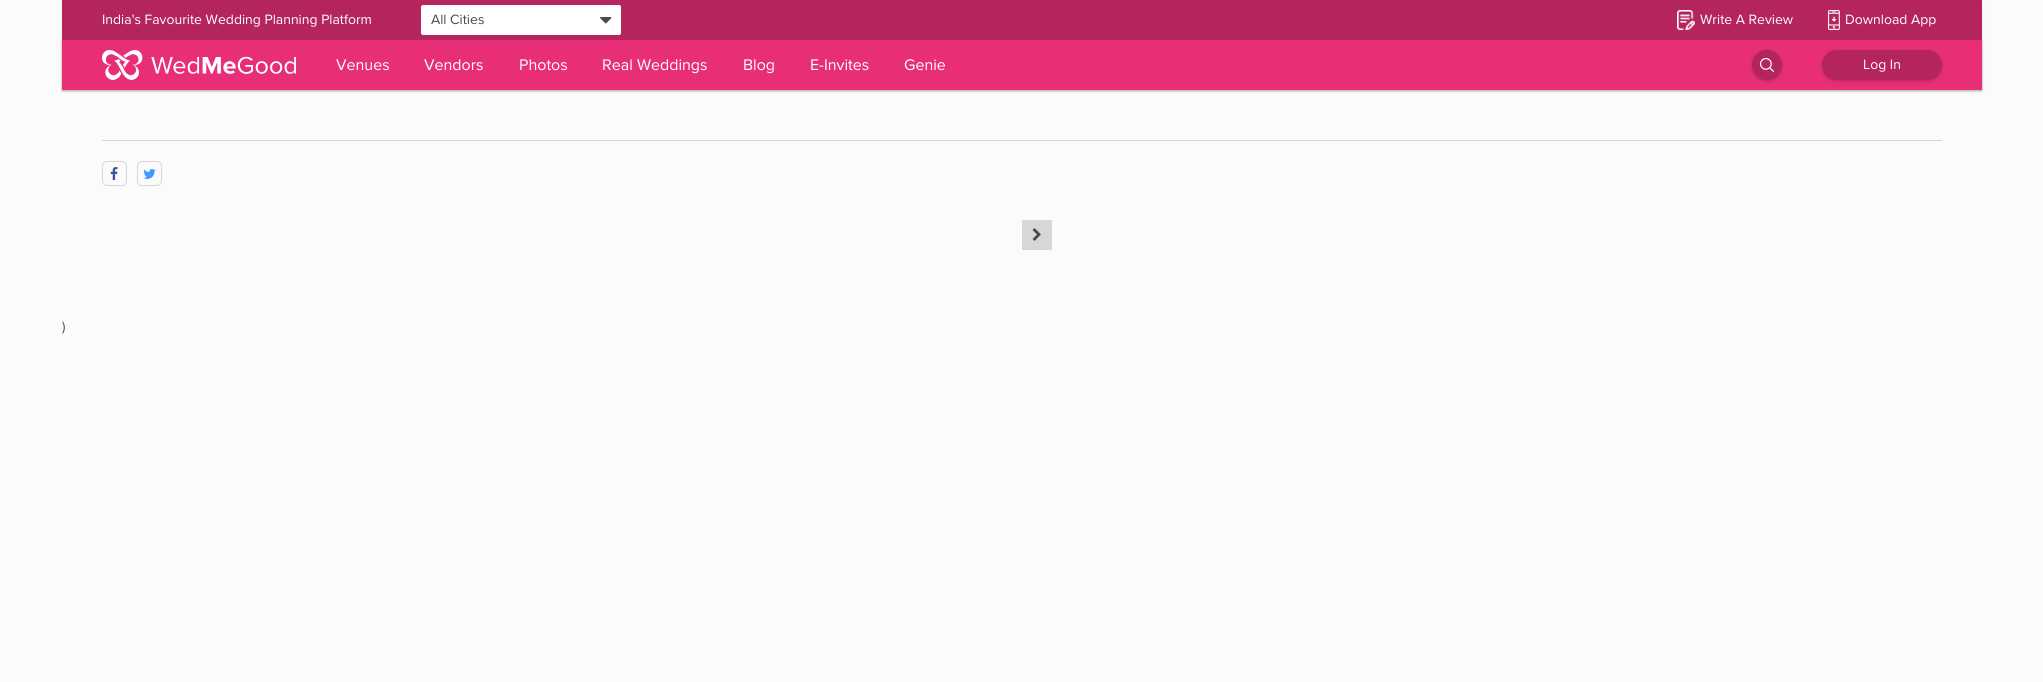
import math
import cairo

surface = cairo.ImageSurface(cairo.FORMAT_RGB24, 2043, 682)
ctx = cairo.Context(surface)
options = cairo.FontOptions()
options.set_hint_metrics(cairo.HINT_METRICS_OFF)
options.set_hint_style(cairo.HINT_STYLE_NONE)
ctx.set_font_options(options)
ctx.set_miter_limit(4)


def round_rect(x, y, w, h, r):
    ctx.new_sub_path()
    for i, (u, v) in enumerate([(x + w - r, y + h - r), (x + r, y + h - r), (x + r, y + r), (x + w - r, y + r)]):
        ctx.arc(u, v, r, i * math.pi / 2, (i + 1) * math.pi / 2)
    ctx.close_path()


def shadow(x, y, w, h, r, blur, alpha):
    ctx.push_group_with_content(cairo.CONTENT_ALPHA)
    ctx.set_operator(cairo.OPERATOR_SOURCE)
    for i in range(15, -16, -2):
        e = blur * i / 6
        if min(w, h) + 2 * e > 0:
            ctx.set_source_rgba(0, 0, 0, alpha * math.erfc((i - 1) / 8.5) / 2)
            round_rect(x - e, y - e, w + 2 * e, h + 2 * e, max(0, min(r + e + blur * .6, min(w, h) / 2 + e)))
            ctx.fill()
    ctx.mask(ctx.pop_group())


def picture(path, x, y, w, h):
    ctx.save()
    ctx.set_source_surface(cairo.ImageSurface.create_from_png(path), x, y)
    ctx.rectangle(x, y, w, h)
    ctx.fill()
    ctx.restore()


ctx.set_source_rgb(0.984, 0.984, 0.984)
ctx.paint()
ctx.set_source_rgb(0, 0, 0)
shadow(62, 1, 1920, 40, 0, 2.5, 0.05)
shadow(62, 41, 1920, 50, 0, 1, 0.24)
shadow(62, 41, 1920, 50, 0, 1.5, 0.12)
ctx.set_source_rgb(0.706, 0.141, 0.365)
ctx.rectangle(62, 0, 1920, 40)
ctx.fill()
ctx.select_font_face("Proxima Nova")
ctx.set_font_size(14)
ctx.set_source_rgb(1, 1, 1)
ctx.move_to(102, 24)
ctx.show_text("India's Favourite Wedding Planning Platform")
round_rect(421, 5, 200, 30, 2)
ctx.fill()
ctx.set_source_rgb(0.29, 0.29, 0.29)
ctx.move_to(431, 24)
ctx.show_text("All Cities")
picture("img1.png", 600, 17, 12, 7)
picture("img2.png", 1677, 10, 18, 20)
ctx.set_source_rgb(1, 1, 1)
ctx.move_to(1700, 24)
ctx.show_text("Write A Review")
picture("img3.png", 1828, 10, 12, 20)
ctx.move_to(1845, 24)
ctx.show_text("Download App")
ctx.set_source_rgb(0.906, 0.18, 0.467)
ctx.rectangle(62, 40, 1920, 50)
ctx.fill()
picture("img4.png", 102, 50, 194, 30)
ctx.set_font_size(16)
ctx.set_source_rgb(1, 1, 1)
ctx.move_to(336, 70)
ctx.show_text("Venues")
ctx.move_to(424, 70)
ctx.show_text("Vendors")
ctx.move_to(519, 70)
ctx.show_text("Photos")
ctx.move_to(602, 70)
ctx.show_text("Real Weddings")
ctx.move_to(743, 70)
ctx.show_text("Blog")
ctx.move_to(810, 70)
ctx.show_text("E-Invites")
ctx.move_to(904, 70)
ctx.show_text("Genie")
ctx.set_source_rgb(0, 0, 0)
shadow(1752, 51, 30, 30, 15, 1.5, 0.2)
ctx.set_source_rgb(0.706, 0.141, 0.365)
ctx.arc(1767, 65, 15, 0, 2 * math.pi)
ctx.fill()
picture("img5.png", 1760, 58, 14, 14)
ctx.set_source_rgb(0, 0, 0)
shadow(1822, 51, 120, 30, 15, 1.5, 0.2)
ctx.set_source_rgb(0.706, 0.141, 0.365)
round_rect(1822, 50, 120, 30, 15)
ctx.fill()
ctx.set_font_size(14)
ctx.set_source_rgb(1, 1, 1)
ctx.move_to(1863, 69)
ctx.show_text("Log In")
ctx.set_source_rgb(0.843, 0.843, 0.843)
ctx.rectangle(102, 140, 1840, 1)
ctx.fill()
round_rect(102.5, 161.5, 24, 24, 4.5)
ctx.set_line_width(1)
ctx.stroke()
picture("img6.png", 110, 167, 8, 13)
round_rect(137.5, 161.5, 24, 24, 4.5)
ctx.stroke()
picture("img7.png", 143, 169, 13, 10)
ctx.rectangle(1022, 220, 30, 30)
ctx.fill()
picture("img8.png", 1032, 228, 9, 13)
ctx.set_source_rgb(0.29, 0.29, 0.29)
ctx.move_to(62, 331)
ctx.show_text(")")
surface.write_to_png("page.png")
